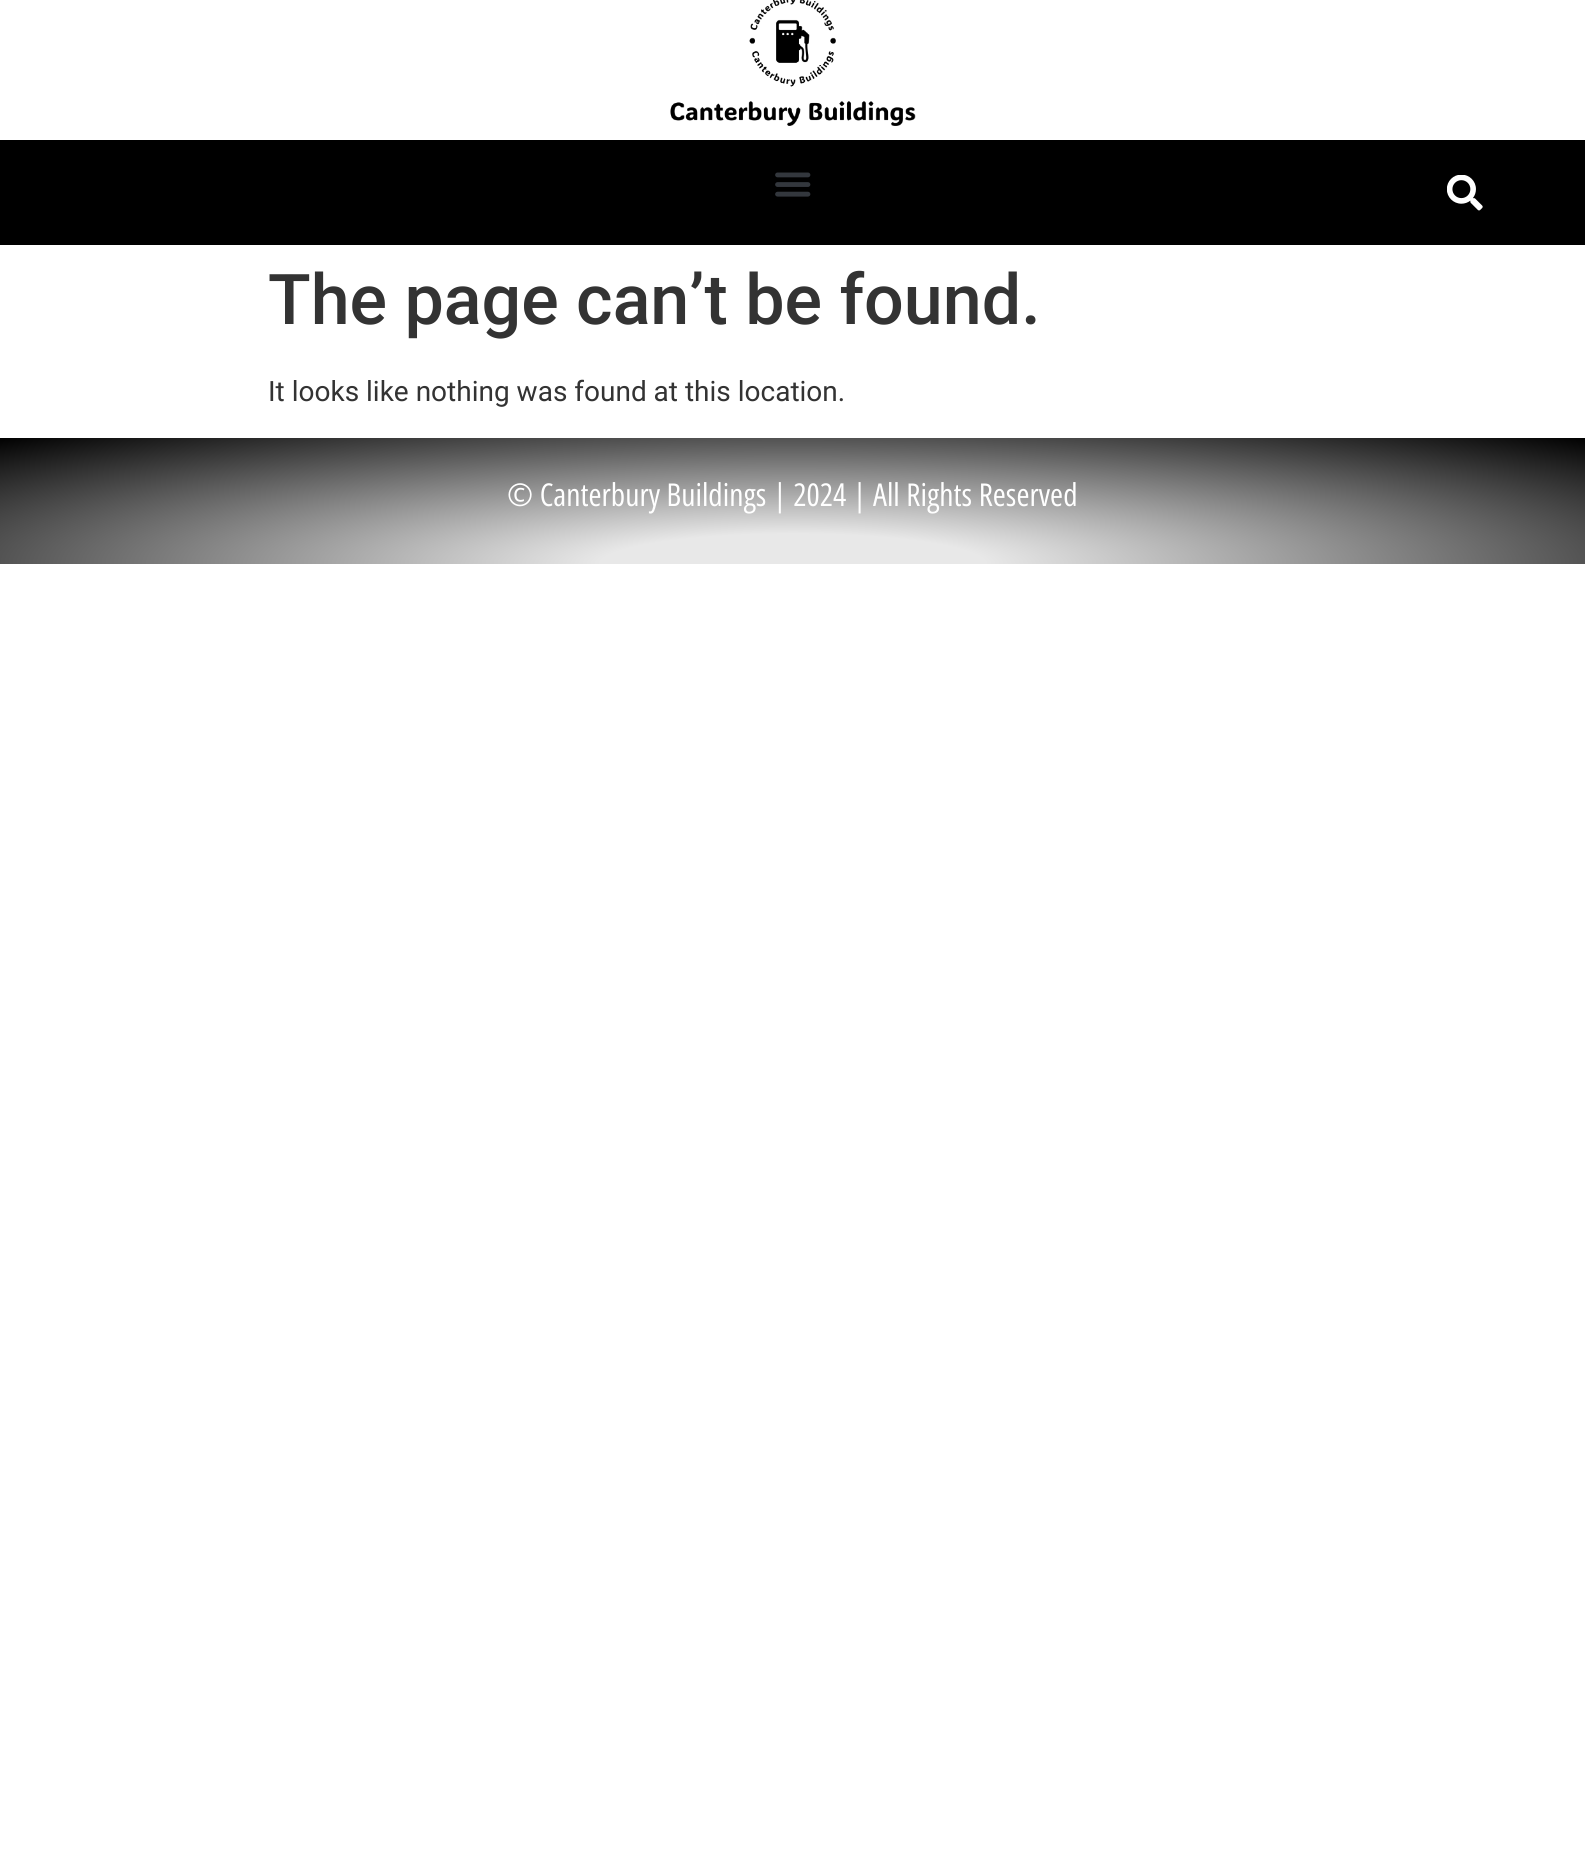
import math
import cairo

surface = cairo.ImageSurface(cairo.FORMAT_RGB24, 1585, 1854)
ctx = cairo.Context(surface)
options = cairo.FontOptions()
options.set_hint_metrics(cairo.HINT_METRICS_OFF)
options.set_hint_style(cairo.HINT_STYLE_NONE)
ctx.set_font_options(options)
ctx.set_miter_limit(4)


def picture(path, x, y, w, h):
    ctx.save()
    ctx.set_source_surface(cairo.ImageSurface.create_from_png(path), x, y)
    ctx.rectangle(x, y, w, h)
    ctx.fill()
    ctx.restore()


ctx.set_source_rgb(1, 1, 1)
ctx.paint()
picture("img1.png", 670, 0, 246, 126)
ctx.set_source_rgb(0, 0, 0)
ctx.rectangle(0, 140, 1585, 105)
ctx.fill()
picture("img2.png", 775, 172, 36, 25)
picture("img3.png", 1447, 175, 36, 36)
ctx.select_font_face("Roboto Medium")
ctx.set_font_size(70)
ctx.set_source_rgb(0.2, 0.2, 0.2)
ctx.move_to(268, 324)
ctx.show_text("The page can’t be found.")
ctx.select_font_face("Roboto")
ctx.set_font_size(28)
ctx.move_to(268, 401)
ctx.show_text("It looks like nothing was found at this location.")
gradient = cairo.RadialGradient(0, 0, 0, 0, 0, 1)
gradient.set_matrix(cairo.Matrix(1 / 1121, 0, 0, 1 / 178, -1 * 793 / 1121, -1 * 564 / 178))
gradient.add_color_stop_rgba(0.17, 0.91, 0.91, 0.91, 1)
gradient.add_color_stop_rgba(1, 0, 0, 0, 1)
ctx.set_source(gradient)
ctx.rectangle(0, 438, 1585, 126)
ctx.fill()
ctx.select_font_face("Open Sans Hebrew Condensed")
ctx.set_font_size(31.5)
ctx.set_source_rgb(1, 1, 1)
ctx.move_to(507, 506)
ctx.show_text("© Canterbury Buildings | 2024 | All Rights Reserved")
surface.write_to_png("page.png")
